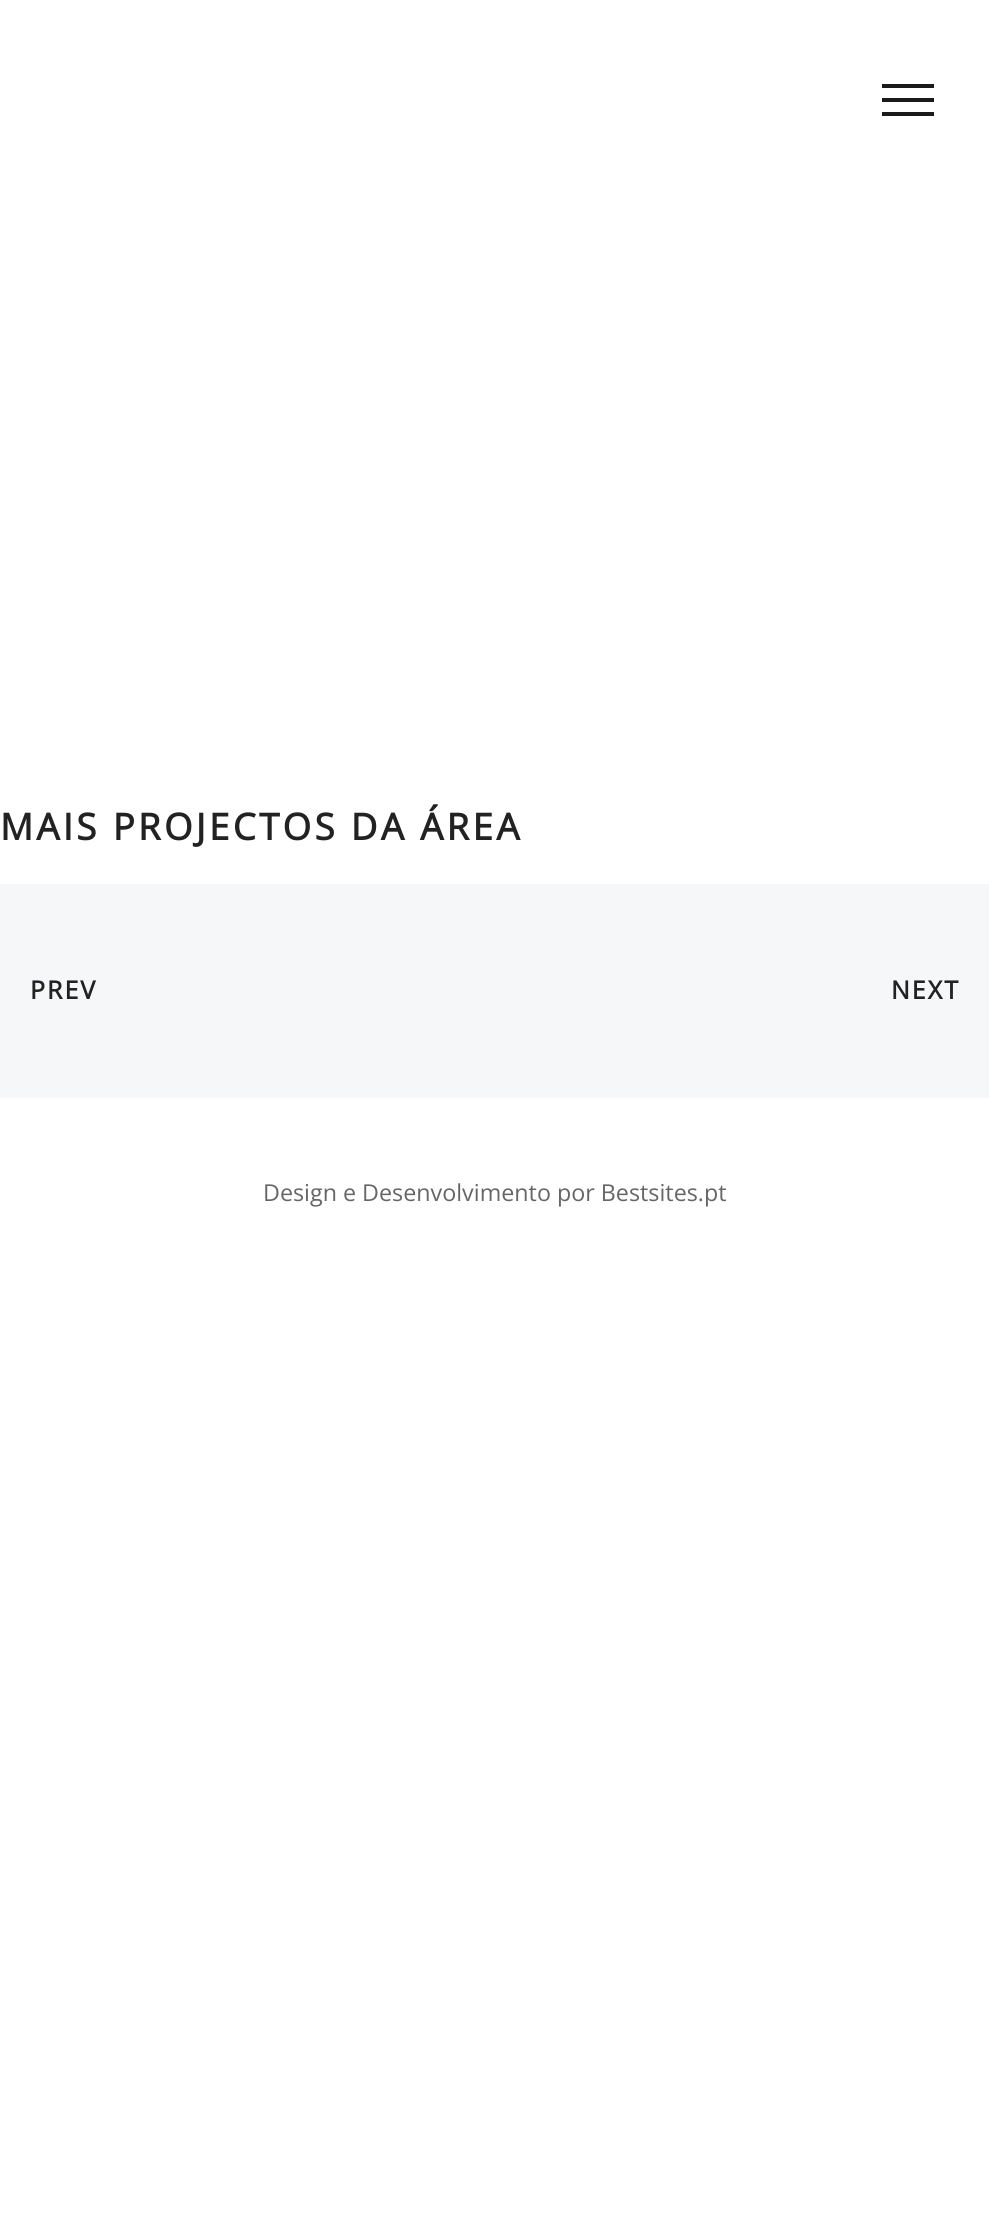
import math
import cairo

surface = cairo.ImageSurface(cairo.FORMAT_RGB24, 989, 2228)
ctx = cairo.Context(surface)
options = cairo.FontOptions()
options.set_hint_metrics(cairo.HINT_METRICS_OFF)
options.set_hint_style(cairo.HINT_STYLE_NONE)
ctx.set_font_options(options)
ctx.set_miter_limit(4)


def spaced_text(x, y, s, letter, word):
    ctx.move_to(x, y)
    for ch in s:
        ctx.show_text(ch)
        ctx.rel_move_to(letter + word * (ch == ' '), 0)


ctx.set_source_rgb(1, 1, 1)
ctx.paint()
ctx.set_source_rgb(0.102, 0.102, 0.102)
ctx.rectangle(882, 84, 52, 4)
ctx.fill()
ctx.rectangle(882, 112, 52, 4)
ctx.fill()
ctx.rectangle(882, 98, 52, 4)
ctx.fill()
ctx.select_font_face("Open Sans", cairo.FONT_SLANT_NORMAL, cairo.FONT_WEIGHT_BOLD)
ctx.set_font_size(36.7)
ctx.set_source_rgb(0.133, 0.133, 0.133)
spaced_text(0, 840, "MAIS PROJECTOS DA ÁREA", 3.3, 0)
ctx.set_source_rgb(0.961, 0.965, 0.969)
ctx.rectangle(0, 884, 989, 214)
ctx.fill()
ctx.set_font_size(25)
ctx.set_source_rgb(0.133, 0.133, 0.133)
spaced_text(30, 999, "PREV", 2, 0)
spaced_text(891, 999, "NEXT", 2, 0)
ctx.select_font_face("Open Sans")
ctx.set_font_size(23.3)
ctx.set_source_rgb(0.4, 0.4, 0.4)
ctx.move_to(263, 1201)
ctx.show_text("Design e Desenvolvimento por Bestsites.pt")
surface.write_to_png("page.png")
